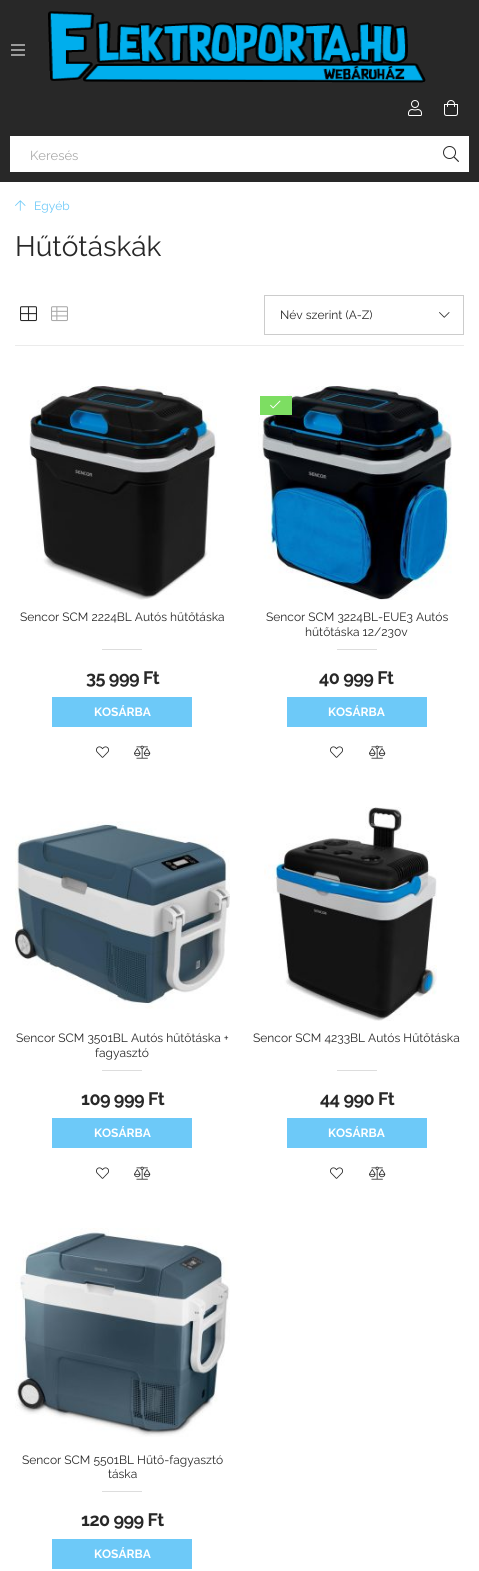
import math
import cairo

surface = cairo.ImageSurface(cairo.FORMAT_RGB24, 479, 1571)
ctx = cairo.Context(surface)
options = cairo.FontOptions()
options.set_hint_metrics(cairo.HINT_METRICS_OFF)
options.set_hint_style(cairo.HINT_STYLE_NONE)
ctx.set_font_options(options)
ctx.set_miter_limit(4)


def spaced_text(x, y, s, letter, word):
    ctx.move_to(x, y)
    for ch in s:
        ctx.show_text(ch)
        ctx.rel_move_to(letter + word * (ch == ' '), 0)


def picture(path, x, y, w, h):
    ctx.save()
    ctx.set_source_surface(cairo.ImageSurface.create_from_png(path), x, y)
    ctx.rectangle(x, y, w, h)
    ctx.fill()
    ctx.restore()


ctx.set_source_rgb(1, 1, 1)
ctx.paint()
ctx.set_source_rgb(0.157, 0.157, 0.157)
ctx.rectangle(0, 0, 479, 182)
ctx.fill()
picture("img1.png", 11, 44, 14, 12)
picture("img2.png", 48, 11, 378, 72)
picture("img3.png", 408, 100, 14, 16)
picture("img4.png", 444, 100, 14, 16)
ctx.set_source_rgb(1, 1, 1)
ctx.rectangle(10, 136, 459, 36)
ctx.fill()
ctx.select_font_face("Raleway")
ctx.set_font_size(13)
ctx.set_source_rgb(0.667, 0.667, 0.667)
ctx.move_to(30, 160)
ctx.show_text("Keresés")
picture("img5.png", 443, 146, 16, 16)
picture("img6.png", 15, 200, 11, 11)
ctx.set_font_size(12)
ctx.set_source_rgb(0.427, 0.788, 0.969)
ctx.move_to(34, 210)
ctx.show_text("Egyéb")
ctx.set_font_size(28)
ctx.set_source_rgb(0.157, 0.157, 0.157)
ctx.move_to(15, 256)
ctx.show_text("Hűtőtáskák")
ctx.set_source_rgb(0.918, 0.918, 0.918)
ctx.rectangle(15, 345, 449, 1)
ctx.fill()
picture("img7.png", 20, 306, 17, 16)
picture("img8.png", 51, 306, 17, 16)
ctx.rectangle(264.5, 295.5, 199, 39)
ctx.set_source_rgb(0.8, 0.8, 0.8)
ctx.set_line_width(1)
ctx.stroke()
ctx.set_font_size(12)
ctx.set_source_rgb(0.157, 0.157, 0.157)
ctx.move_to(280, 319)
ctx.show_text("Név szerint (A-Z)")
picture("img9.png", 439, 312, 11, 6)
picture("img10.png", 29, 386, 188, 214)
ctx.move_to(20, 621)
ctx.show_text("Sencor SCM 2224BL Autós hűtőtáska")
ctx.set_source_rgb(0.867, 0.867, 0.867)
ctx.rectangle(102, 649, 40, 1)
ctx.fill()
ctx.select_font_face("Raleway", cairo.FONT_SLANT_NORMAL, cairo.FONT_WEIGHT_BOLD)
ctx.set_font_size(18)
ctx.set_source_rgb(0.157, 0.157, 0.157)
spaced_text(86, 684, "35 999 Ft", -0.5, 0)
ctx.set_source_rgb(0.427, 0.788, 0.969)
ctx.rectangle(52, 697, 140, 30)
ctx.fill()
ctx.set_font_size(12)
ctx.set_source_rgb(1, 1, 1)
ctx.move_to(94, 716)
ctx.show_text("KOSÁRBA")
picture("img11.png", 96, 746, 13, 12)
picture("img12.png", 134, 745, 17, 14)
picture("img13.png", 258, 386, 194, 214)
ctx.set_source_rgb(0.49, 0.871, 0.384)
ctx.rectangle(260, 396, 32, 19)
ctx.fill()
picture("img14.png", 270, 400, 11, 9)
ctx.select_font_face("Raleway")
ctx.set_source_rgb(0.157, 0.157, 0.157)
ctx.move_to(266, 621)
ctx.show_text("Sencor SCM 3224BL-EUE3 Autós")
ctx.move_to(305, 636)
ctx.show_text("hűtőtáska 12/230v")
ctx.set_source_rgb(0.867, 0.867, 0.867)
ctx.rectangle(337, 649, 40, 1)
ctx.fill()
ctx.select_font_face("Raleway", cairo.FONT_SLANT_NORMAL, cairo.FONT_WEIGHT_BOLD)
ctx.set_font_size(18)
ctx.set_source_rgb(0.157, 0.157, 0.157)
spaced_text(319, 684, "40 999 Ft", -0.5, 0)
ctx.set_source_rgb(0.427, 0.788, 0.969)
ctx.rectangle(287, 697, 140, 30)
ctx.fill()
ctx.set_font_size(12)
ctx.set_source_rgb(1, 1, 1)
ctx.move_to(328, 716)
ctx.show_text("KOSÁRBA")
picture("img11.png", 330, 746, 13, 12)
picture("img12.png", 369, 745, 17, 14)
picture("img15.png", 15, 821, 215, 188)
ctx.select_font_face("Raleway")
ctx.set_source_rgb(0.157, 0.157, 0.157)
ctx.move_to(16, 1042)
ctx.show_text("Sencor SCM 3501BL Autós hűtőtáska +")
ctx.move_to(95, 1057)
ctx.show_text("fagyasztó")
ctx.set_source_rgb(0.867, 0.867, 0.867)
ctx.rectangle(102, 1070, 40, 1)
ctx.fill()
ctx.select_font_face("Raleway", cairo.FONT_SLANT_NORMAL, cairo.FONT_WEIGHT_BOLD)
ctx.set_font_size(18)
ctx.set_source_rgb(0.157, 0.157, 0.157)
spaced_text(81, 1105, "109 999 Ft", -0.5, 0)
ctx.set_source_rgb(0.427, 0.788, 0.969)
ctx.rectangle(52, 1118, 140, 30)
ctx.fill()
ctx.set_font_size(12)
ctx.set_source_rgb(1, 1, 1)
ctx.move_to(94, 1137)
ctx.show_text("KOSÁRBA")
picture("img11.png", 96, 1167, 13, 12)
picture("img12.png", 134, 1166, 17, 14)
picture("img16.png", 264, 807, 173, 214)
ctx.select_font_face("Raleway")
ctx.set_source_rgb(0.157, 0.157, 0.157)
ctx.move_to(253, 1042)
ctx.show_text("Sencor SCM 4233BL Autós Hűtőtáska")
ctx.set_source_rgb(0.867, 0.867, 0.867)
ctx.rectangle(337, 1070, 40, 1)
ctx.fill()
ctx.select_font_face("Raleway", cairo.FONT_SLANT_NORMAL, cairo.FONT_WEIGHT_BOLD)
ctx.set_font_size(18)
ctx.set_source_rgb(0.157, 0.157, 0.157)
spaced_text(320, 1105, "44 990 Ft", -0.5, 0)
ctx.set_source_rgb(0.427, 0.788, 0.969)
ctx.rectangle(287, 1118, 140, 30)
ctx.fill()
ctx.set_font_size(12)
ctx.set_source_rgb(1, 1, 1)
ctx.move_to(328, 1137)
ctx.show_text("KOSÁRBA")
picture("img11.png", 330, 1167, 13, 12)
picture("img12.png", 369, 1166, 17, 14)
picture("img17.png", 15, 1228, 215, 209)
ctx.select_font_face("Raleway")
ctx.set_source_rgb(0.157, 0.157, 0.157)
ctx.move_to(22, 1464)
ctx.show_text("Sencor SCM 5501BL Hűtő-fagyasztó")
ctx.move_to(108, 1478)
ctx.show_text("táska")
ctx.set_source_rgb(0.867, 0.867, 0.867)
ctx.rectangle(102, 1491, 40, 1)
ctx.fill()
ctx.select_font_face("Raleway", cairo.FONT_SLANT_NORMAL, cairo.FONT_WEIGHT_BOLD)
ctx.set_font_size(18)
ctx.set_source_rgb(0.157, 0.157, 0.157)
spaced_text(81, 1526, "120 999 Ft", -0.5, 0)
ctx.set_source_rgb(0.427, 0.788, 0.969)
ctx.rectangle(52, 1539, 140, 30)
ctx.fill()
ctx.set_font_size(12)
ctx.set_source_rgb(1, 1, 1)
ctx.move_to(94, 1558)
ctx.show_text("KOSÁRBA")
surface.write_to_png("page.png")
